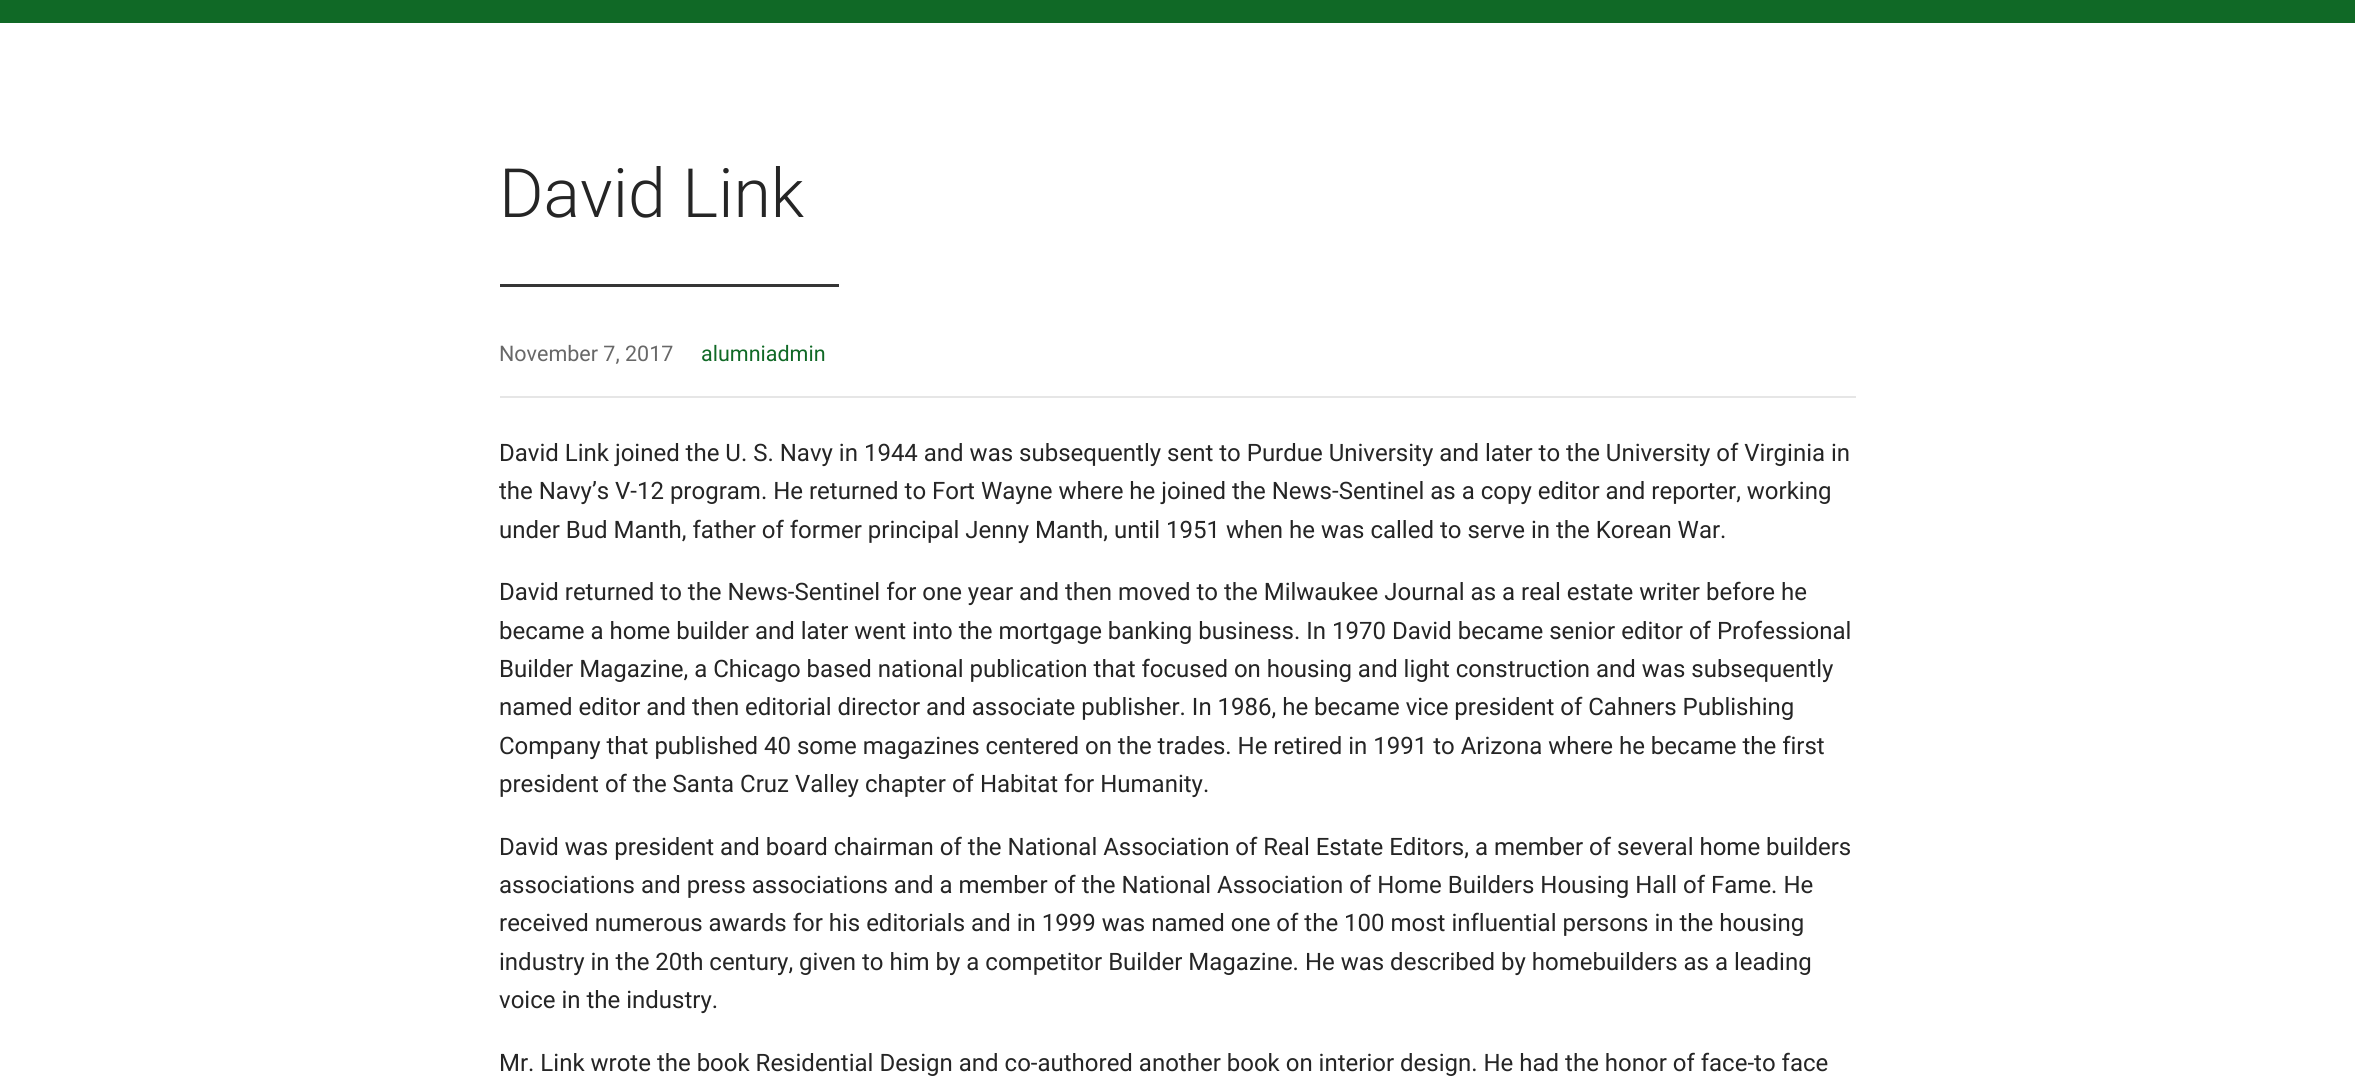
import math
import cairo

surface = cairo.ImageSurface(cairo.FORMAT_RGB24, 2355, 1088)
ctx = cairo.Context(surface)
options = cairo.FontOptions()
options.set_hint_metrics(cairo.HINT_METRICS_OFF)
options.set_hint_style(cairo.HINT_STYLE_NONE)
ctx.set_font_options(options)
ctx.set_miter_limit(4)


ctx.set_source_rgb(1, 1, 1)
ctx.paint()
ctx.set_source_rgb(0.063, 0.412, 0.149)
ctx.rectangle(0, 0, 2355, 23)
ctx.fill()
ctx.select_font_face("Roboto Light")
ctx.set_font_size(68)
ctx.set_source_rgb(0.145, 0.145, 0.145)
ctx.move_to(499, 217)
ctx.show_text("David Link")
ctx.set_source_rgb(0.208, 0.208, 0.208)
ctx.rectangle(500, 284, 339, 3)
ctx.fill()
ctx.set_source_rgb(0.902, 0.902, 0.902)
ctx.rectangle(500, 396, 1356, 2)
ctx.fill()
ctx.select_font_face("Roboto")
ctx.set_font_size(21.5)
ctx.set_source_rgb(0.408, 0.408, 0.408)
ctx.move_to(499, 361)
ctx.show_text("November 7, 2017")
ctx.set_source_rgb(0.063, 0.412, 0.149)
ctx.move_to(701, 361)
ctx.show_text("alumniadmin")
ctx.set_font_size(24)
ctx.set_source_rgb(0.145, 0.145, 0.145)
ctx.move_to(499, 461)
ctx.show_text("David Link joined the U. S. Navy in 1944 and was subsequently sent to Purdue University and later to the University of Virginia in")
ctx.move_to(499, 499)
ctx.show_text("the Navy’s V-12 program. He returned to Fort Wayne where he joined the News-Sentinel as a copy editor and reporter, working")
ctx.move_to(499, 538)
ctx.show_text("under Bud Manth, father of former principal Jenny Manth, until 1951 when he was called to serve in the Korean War.")
ctx.move_to(499, 600)
ctx.show_text("David returned to the News-Sentinel for one year and then moved to the Milwaukee Journal as a real estate writer before he")
ctx.move_to(499, 639)
ctx.show_text("became a home builder and later went into the mortgage banking business. In 1970 David became senior editor of Professional")
ctx.move_to(499, 677)
ctx.show_text("Builder Magazine, a Chicago based national publication that focused on housing and light construction and was subsequently")
ctx.move_to(499, 715)
ctx.show_text("named editor and then editorial director and associate publisher. In 1986, he became vice president of Cahners Publishing")
ctx.move_to(499, 754)
ctx.show_text("Company that published 40 some magazines centered on the trades. He retired in 1991 to Arizona where he became the first")
ctx.move_to(499, 792)
ctx.show_text("president of the Santa Cruz Valley chapter of Habitat for Humanity.")
ctx.move_to(499, 855)
ctx.show_text("David was president and board chairman of the National Association of Real Estate Editors, a member of several home builders")
ctx.move_to(499, 893)
ctx.show_text("associations and press associations and a member of the National Association of Home Builders Housing Hall of Fame. He")
ctx.move_to(499, 931)
ctx.show_text("received numerous awards for his editorials and in 1999 was named one of the 100 most influential persons in the housing")
ctx.move_to(499, 970)
ctx.show_text("industry in the 20th century, given to him by a competitor Builder Magazine. He was described by homebuilders as a leading")
ctx.move_to(499, 1008)
ctx.show_text("voice in the industry.")
ctx.move_to(499, 1071)
ctx.show_text("Mr. Link wrote the book Residential Design and co-authored another book on interior design. He had the honor of face-to face")
surface.write_to_png("page.png")
